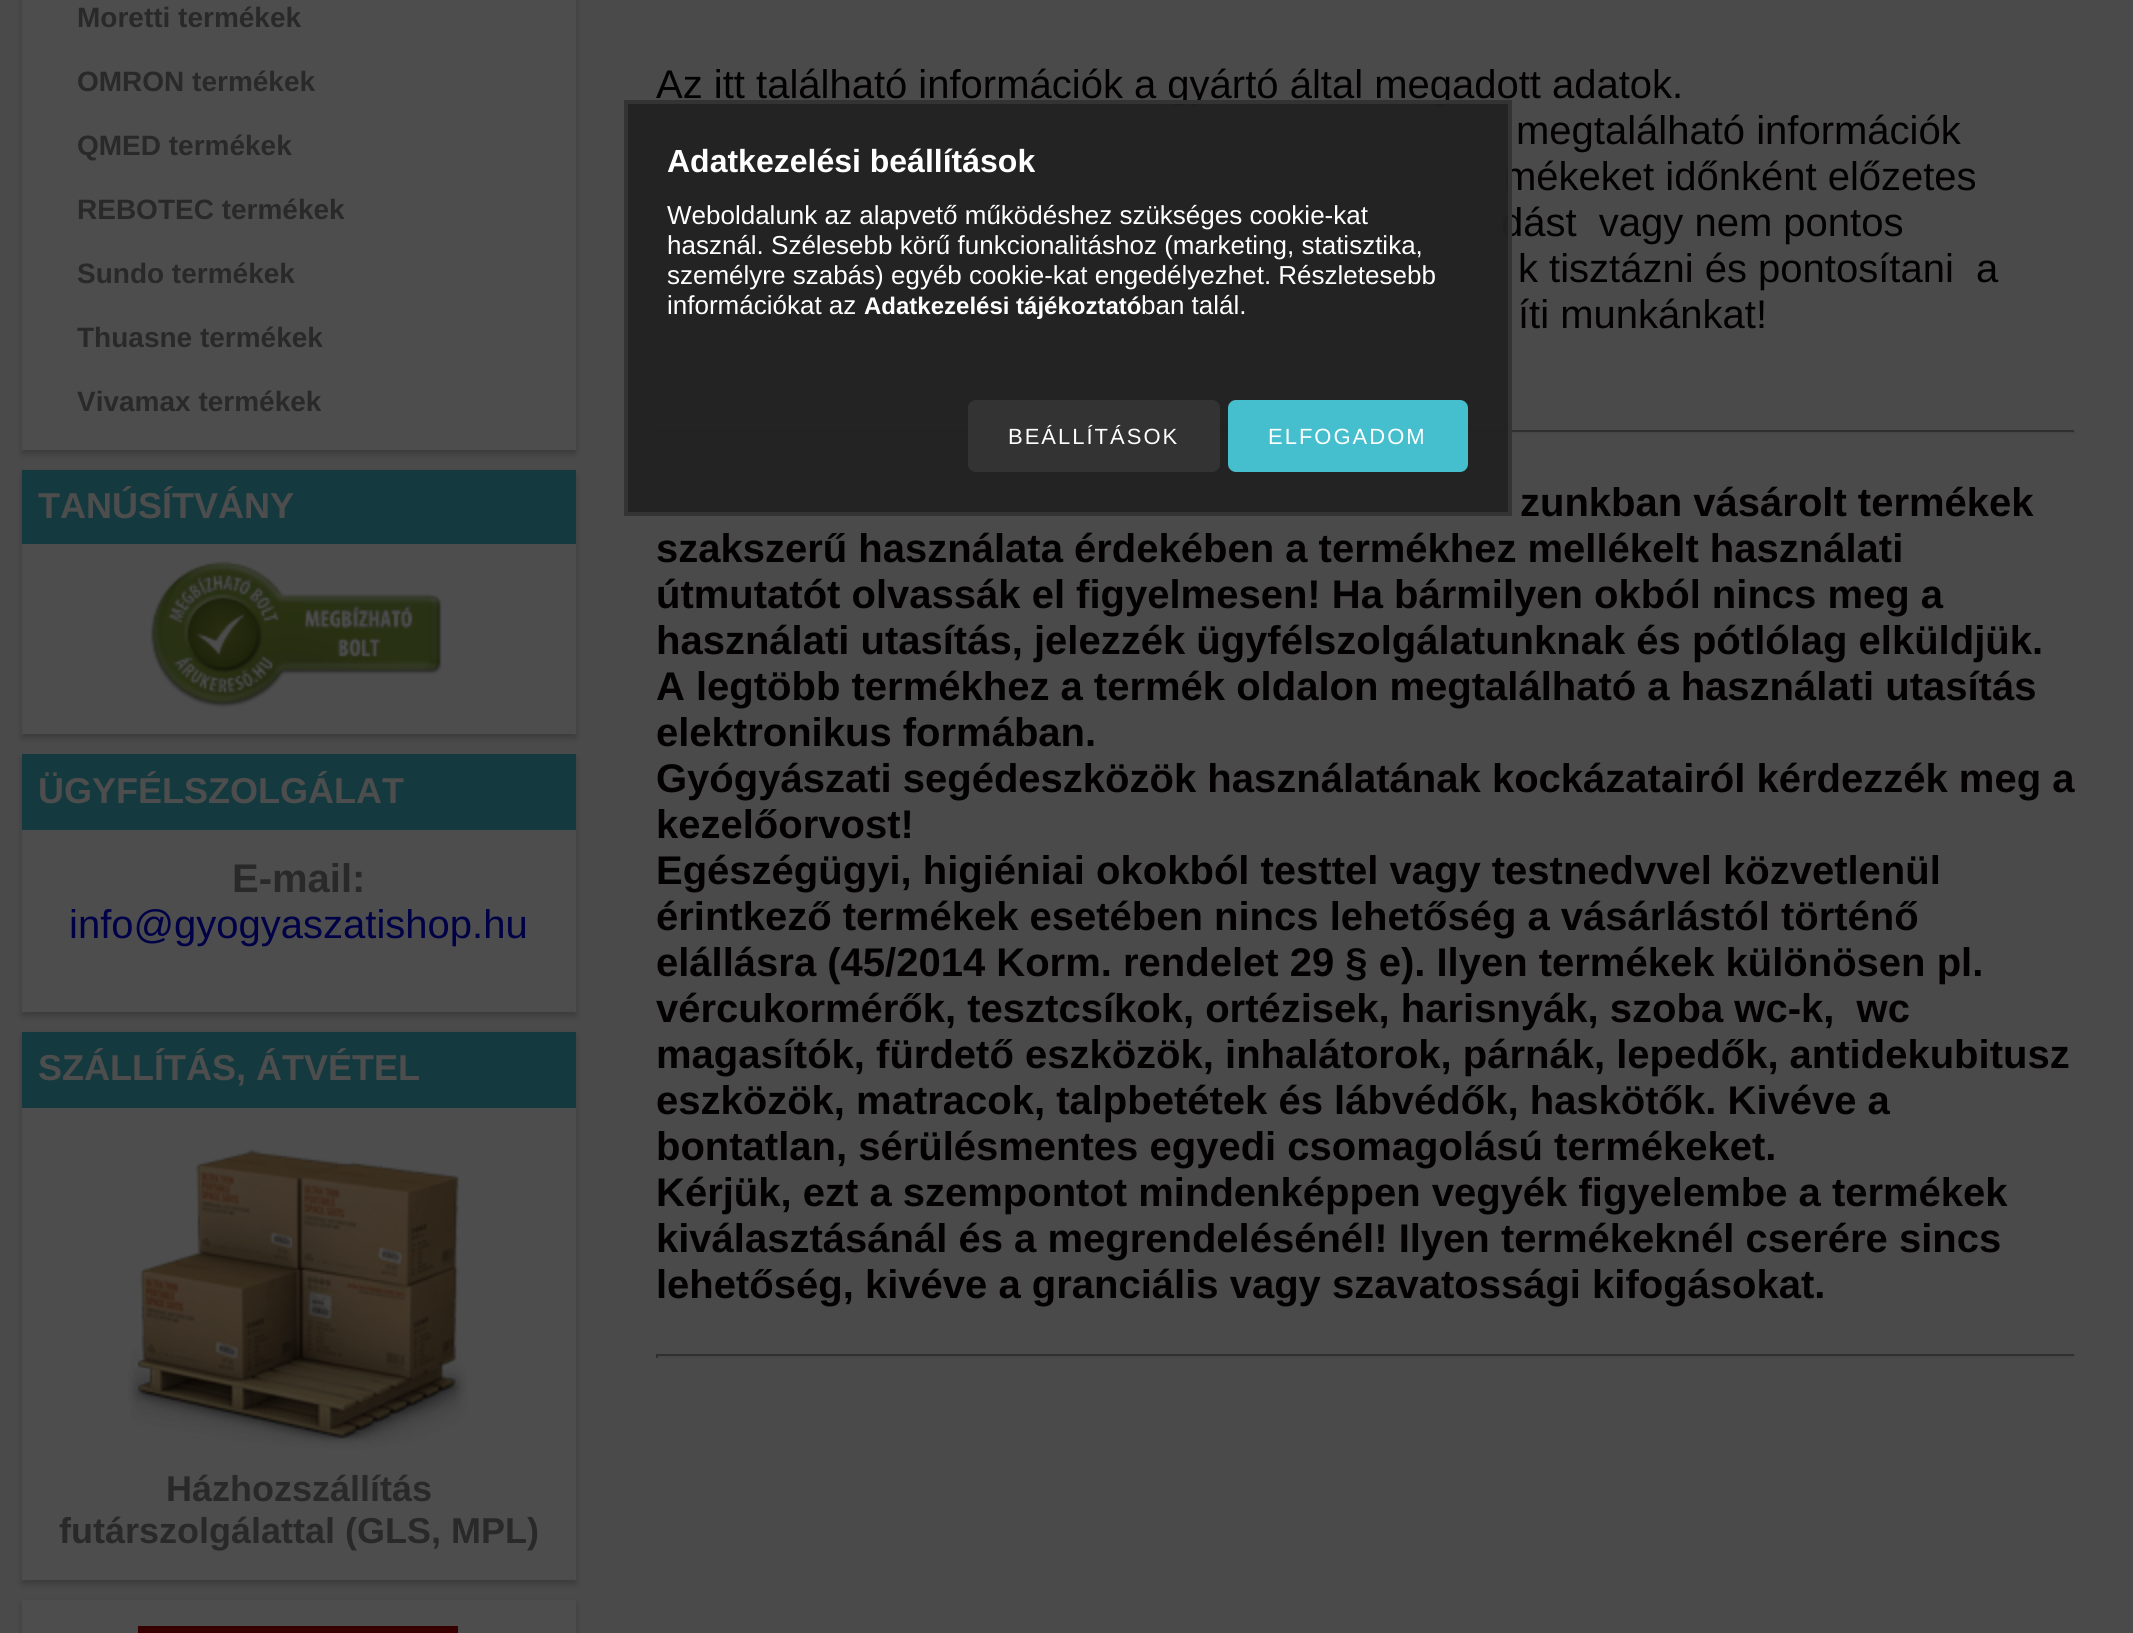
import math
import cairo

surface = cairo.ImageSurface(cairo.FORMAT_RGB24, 2133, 1633)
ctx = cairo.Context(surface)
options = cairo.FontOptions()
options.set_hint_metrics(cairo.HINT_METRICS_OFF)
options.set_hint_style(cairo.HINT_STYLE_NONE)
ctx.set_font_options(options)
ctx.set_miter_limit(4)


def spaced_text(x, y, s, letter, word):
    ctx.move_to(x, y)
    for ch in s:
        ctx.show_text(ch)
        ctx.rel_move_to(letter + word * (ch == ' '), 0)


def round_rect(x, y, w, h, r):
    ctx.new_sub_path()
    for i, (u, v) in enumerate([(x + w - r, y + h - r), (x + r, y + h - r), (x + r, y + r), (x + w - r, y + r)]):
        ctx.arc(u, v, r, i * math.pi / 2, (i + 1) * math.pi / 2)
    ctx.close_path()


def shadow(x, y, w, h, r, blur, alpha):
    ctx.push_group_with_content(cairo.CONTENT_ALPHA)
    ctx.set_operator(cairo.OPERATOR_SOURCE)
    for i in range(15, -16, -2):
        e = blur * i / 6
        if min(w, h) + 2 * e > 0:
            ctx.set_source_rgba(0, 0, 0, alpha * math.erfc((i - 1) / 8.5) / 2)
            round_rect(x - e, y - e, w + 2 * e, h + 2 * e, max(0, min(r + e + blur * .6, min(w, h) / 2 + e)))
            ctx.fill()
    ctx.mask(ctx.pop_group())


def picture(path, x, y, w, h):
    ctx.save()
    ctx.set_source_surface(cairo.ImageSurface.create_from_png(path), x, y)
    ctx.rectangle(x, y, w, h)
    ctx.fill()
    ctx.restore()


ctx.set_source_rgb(0.29, 0.29, 0.29)
ctx.paint()
ctx.set_source_rgb(0, 0, 0)
shadow(22, -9, 554, 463, 0, 3, 0.2)
ctx.set_source_rgb(0.302, 0.302, 0.302)
ctx.rectangle(22, 0, 554, 450)
ctx.fill()
ctx.select_font_face("Liberation Sans", cairo.FONT_SLANT_NORMAL, cairo.FONT_WEIGHT_BOLD)
ctx.set_font_size(28)
ctx.set_source_rgb(0.165, 0.161, 0.161)
ctx.move_to(77, 27)
ctx.show_text("Moretti termékek")
ctx.move_to(77, 91)
ctx.show_text("OMRON termékek")
ctx.move_to(77, 155)
ctx.show_text("QMED termékek")
ctx.move_to(77, 219)
ctx.show_text("REBOTEC termékek")
ctx.move_to(77, 283)
ctx.show_text("Sundo termékek")
ctx.move_to(77, 347)
ctx.show_text("Thuasne termékek")
ctx.move_to(77, 411)
ctx.show_text("Vivamax termékek")
ctx.set_source_rgb(0, 0, 0)
shadow(22, 474, 554, 264, 0, 3, 0.2)
ctx.set_source_rgb(0.082, 0.224, 0.243)
ctx.rectangle(22, 470, 554, 74)
ctx.fill()
ctx.set_font_size(36)
ctx.set_source_rgb(0.302, 0.302, 0.302)
ctx.move_to(38, 518)
ctx.show_text("TANÚSÍTVÁNY")
ctx.rectangle(22, 544, 554, 190)
ctx.fill()
picture("img1.png", 150, 561, 292, 147)
ctx.set_source_rgb(0, 0, 0)
shadow(22, 758, 554, 258, 0, 3, 0.2)
ctx.set_source_rgb(0.082, 0.224, 0.243)
ctx.rectangle(22, 754, 554, 76)
ctx.fill()
ctx.set_source_rgb(0.302, 0.302, 0.302)
ctx.move_to(38, 803)
ctx.show_text("ÜGYFÉLSZOLGÁLAT")
ctx.rectangle(22, 830, 554, 182)
ctx.fill()
ctx.set_font_size(40)
ctx.set_source_rgb(0.165, 0.161, 0.161)
ctx.move_to(232, 892)
ctx.show_text("E-mail:")
ctx.select_font_face("Liberation Sans")
ctx.set_source_rgb(0, 0, 0.278)
ctx.move_to(69, 938)
ctx.show_text("info@gyogyaszatishop.hu")
ctx.set_source_rgb(0, 0, 0)
shadow(22, 1036, 554, 548, 0, 3, 0.2)
ctx.set_source_rgb(0.082, 0.224, 0.243)
ctx.rectangle(22, 1032, 554, 76)
ctx.fill()
ctx.select_font_face("Liberation Sans", cairo.FONT_SLANT_NORMAL, cairo.FONT_WEIGHT_BOLD)
ctx.set_font_size(36)
ctx.set_source_rgb(0.302, 0.302, 0.302)
ctx.move_to(38, 1080)
ctx.show_text("SZÁLLÍTÁS, ÁTVÉTEL")
ctx.rectangle(22, 1108, 554, 472)
ctx.fill()
picture("img2.png", 128, 1149, 340, 300)
ctx.set_source_rgb(0.165, 0.161, 0.161)
ctx.move_to(166, 1501)
ctx.show_text("Házhozszállítás")
ctx.move_to(59, 1543)
ctx.show_text("futárszolgálattal (GLS, MPL)")
ctx.set_source_rgb(0, 0, 0)
shadow(22, 1604, 554, 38, 0, 3, 0.2)
ctx.set_source_rgb(0.302, 0.302, 0.302)
ctx.rectangle(22, 1600, 554, 33)
ctx.fill()
ctx.set_source_rgb(0.216, 0, 0)
ctx.rectangle(138, 1626, 320, 7)
ctx.fill()
ctx.select_font_face("Liberation Sans")
ctx.set_font_size(40)
ctx.set_source_rgb(0.008, 0, 0)
ctx.move_to(656, 98)
ctx.show_text("Az itt található információk a gyártó által megadott adatok.")
ctx.move_to(1516, 144)
ctx.show_text("megtalálható információk")
ctx.move_to(1503, 190)
ctx.show_text("mékeket időnként előzetes")
ctx.move_to(1501, 236)
ctx.show_text("dást  vagy nem pontos")
ctx.move_to(1518, 282)
ctx.show_text("k tisztázni és pontosítani  a")
ctx.move_to(1518, 328)
ctx.show_text("íti munkánkat!")
ctx.set_source_rgb(0.188, 0.188, 0.188)
ctx.rectangle(656, 430, 1420, 2)
ctx.fill()
ctx.set_source_rgb(0.278, 0.278, 0.278)
ctx.rectangle(2074, 430, 2, 4)
ctx.fill()
ctx.rectangle(656, 432, 1420, 2)
ctx.fill()
ctx.set_source_rgb(0.188, 0.188, 0.188)
ctx.rectangle(656, 430, 2, 4)
ctx.fill()
ctx.select_font_face("Liberation Sans", cairo.FONT_SLANT_NORMAL, cairo.FONT_WEIGHT_BOLD)
ctx.set_source_rgb(0.008, 0, 0)
ctx.move_to(1520, 516)
ctx.show_text("zunkban vásárolt termékek")
ctx.move_to(656, 562)
ctx.show_text("szakszerű használata érdekében a termékhez mellékelt használati")
ctx.move_to(656, 608)
ctx.show_text("útmutatót olvassák el figyelmesen! Ha bármilyen okból nincs meg a")
ctx.move_to(656, 654)
ctx.show_text("használati utasítás, jelezzék ügyfélszolgálatunknak és pótlólag elküldjük.")
ctx.move_to(656, 700)
ctx.show_text("A legtöbb termékhez a termék oldalon megtalálható a használati utasítás")
ctx.move_to(656, 746)
ctx.show_text("elektronikus formában.")
ctx.move_to(656, 792)
ctx.show_text("Gyógyászati segédeszközök használatának kockázatairól kérdezzék meg a")
ctx.move_to(656, 838)
ctx.show_text("kezelőorvost!")
ctx.move_to(656, 884)
ctx.show_text("Egészégügyi, higiéniai okokból testtel vagy testnedvvel közvetlenül")
ctx.move_to(656, 930)
ctx.show_text("érintkező termékek esetében nincs lehetőség a vásárlástól történő")
ctx.move_to(656, 976)
ctx.show_text("elállásra (45/2014 Korm. rendelet 29 § e). Ilyen termékek különösen pl.")
ctx.move_to(656, 1022)
ctx.show_text("vércukormérők, tesztcsíkok, ortézisek, harisnyák, szoba wc-k,  wc")
ctx.move_to(656, 1068)
ctx.show_text("magasítók, fürdető eszközök, inhalátorok, párnák, lepedők, antidekubitusz")
ctx.move_to(656, 1114)
ctx.show_text("eszközök, matracok, talpbetétek és lábvédők, haskötők. Kivéve a")
ctx.move_to(656, 1160)
ctx.show_text("bontatlan, sérülésmentes egyedi csomagolású termékeket.")
ctx.move_to(656, 1206)
ctx.show_text("Kérjük, ezt a szempontot mindenképpen vegyék figyelembe a termékek")
ctx.move_to(656, 1252)
ctx.show_text("kiválasztásánál és a megrendelésénél! Ilyen termékeknél cserére sincs")
ctx.move_to(656, 1298)
ctx.show_text("lehetőség, kivéve a granciális vagy szavatossági kifogásokat.")
ctx.set_source_rgb(0.188, 0.188, 0.188)
ctx.rectangle(656, 1354, 1420, 2)
ctx.fill()
ctx.set_source_rgb(0.278, 0.278, 0.278)
ctx.rectangle(2074, 1354, 2, 4)
ctx.fill()
ctx.rectangle(656, 1356, 1420, 2)
ctx.fill()
ctx.set_source_rgb(0.188, 0.188, 0.188)
ctx.rectangle(656, 1354, 2, 4)
ctx.fill()
ctx.set_source_rgba(0.133, 0.133, 0.133, 0.95)
ctx.rectangle(626, 102, 884, 412)
ctx.fill_preserve()
ctx.set_source_rgb(0.2, 0.2, 0.2)
ctx.set_line_width(4)
ctx.stroke()
ctx.set_font_size(32)
ctx.set_source_rgb(1, 1, 1)
ctx.move_to(667, 172)
ctx.show_text("Adatkezelési beállítások")
ctx.select_font_face("Liberation Sans")
ctx.set_font_size(26)
ctx.move_to(667, 224)
ctx.show_text("Weboldalunk az alapvető működéshez szükséges cookie-kat")
ctx.move_to(667, 254)
ctx.show_text("használ. Szélesebb körű funkcionalitáshoz (marketing, statisztika,")
ctx.move_to(667, 284)
ctx.show_text("személyre szabás) egyéb cookie-kat engedélyezhet. Részletesebb")
ctx.move_to(667, 314)
ctx.show_text("információkat az")
ctx.select_font_face("Liberation Sans", cairo.FONT_SLANT_NORMAL, cairo.FONT_WEIGHT_BOLD)
ctx.set_font_size(24)
ctx.move_to(864, 314)
ctx.show_text("Adatkezelési tájékoztató")
ctx.select_font_face("Liberation Sans")
ctx.set_font_size(26)
ctx.move_to(1141, 314)
ctx.show_text("ban talál.")
ctx.set_source_rgb(0.2, 0.2, 0.2)
round_rect(968, 400, 252, 72, 8)
ctx.fill()
ctx.set_font_size(22)
ctx.set_source_rgb(1, 1, 1)
spaced_text(1008, 444, "BEÁLLÍTÁSOK", 2, 0)
ctx.set_source_rgb(0.271, 0.749, 0.808)
round_rect(1228, 400, 240, 72, 8)
ctx.fill()
ctx.set_source_rgb(1, 1, 1)
spaced_text(1268, 444, "ELFOGADOM", 2, 0)
surface.write_to_png("page.png")
